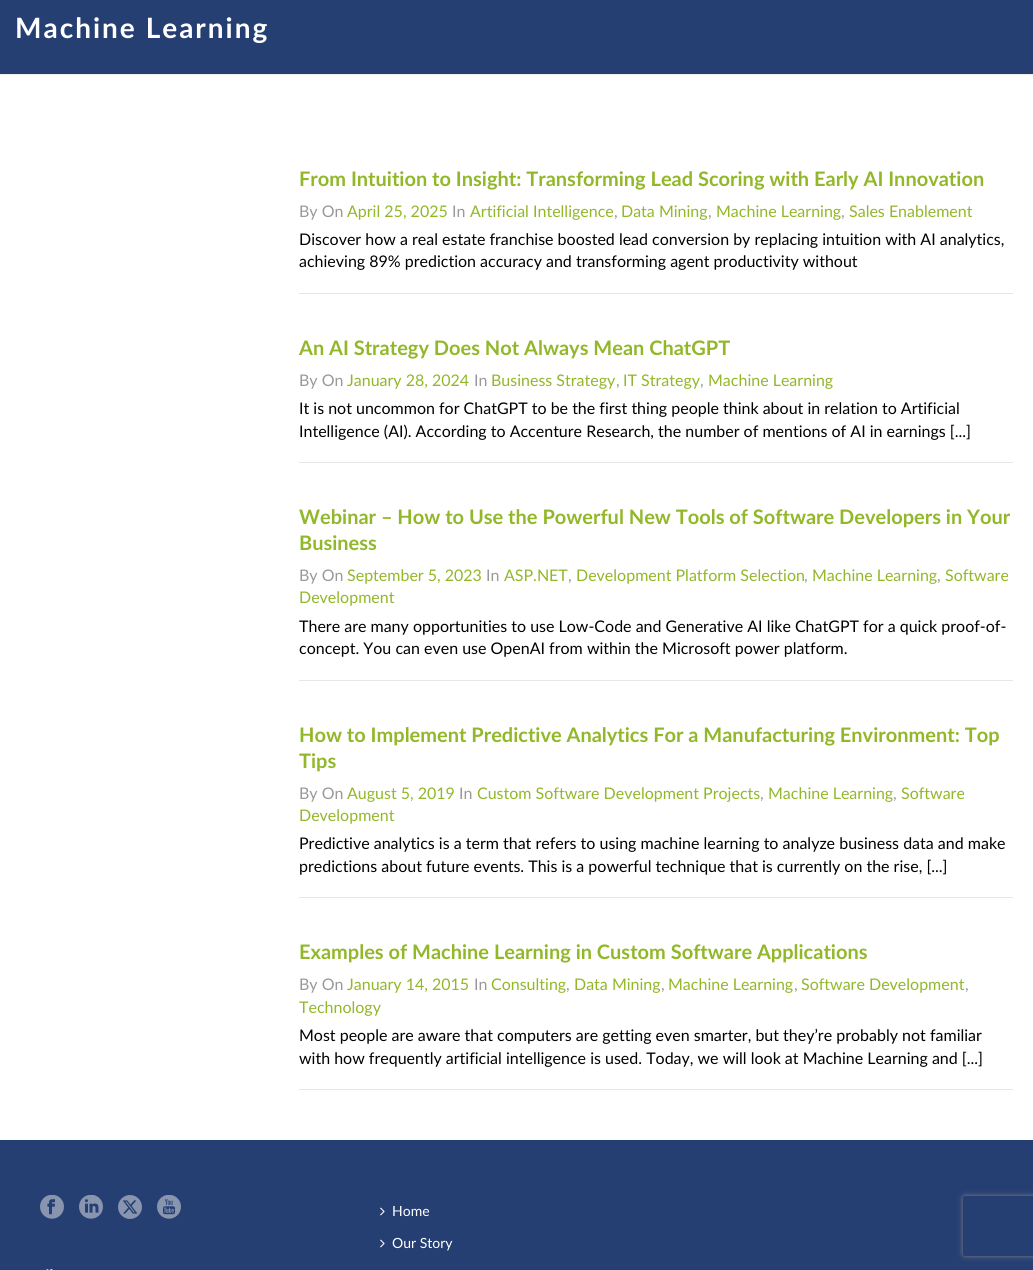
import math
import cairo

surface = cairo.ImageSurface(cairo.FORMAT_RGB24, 1033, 1270)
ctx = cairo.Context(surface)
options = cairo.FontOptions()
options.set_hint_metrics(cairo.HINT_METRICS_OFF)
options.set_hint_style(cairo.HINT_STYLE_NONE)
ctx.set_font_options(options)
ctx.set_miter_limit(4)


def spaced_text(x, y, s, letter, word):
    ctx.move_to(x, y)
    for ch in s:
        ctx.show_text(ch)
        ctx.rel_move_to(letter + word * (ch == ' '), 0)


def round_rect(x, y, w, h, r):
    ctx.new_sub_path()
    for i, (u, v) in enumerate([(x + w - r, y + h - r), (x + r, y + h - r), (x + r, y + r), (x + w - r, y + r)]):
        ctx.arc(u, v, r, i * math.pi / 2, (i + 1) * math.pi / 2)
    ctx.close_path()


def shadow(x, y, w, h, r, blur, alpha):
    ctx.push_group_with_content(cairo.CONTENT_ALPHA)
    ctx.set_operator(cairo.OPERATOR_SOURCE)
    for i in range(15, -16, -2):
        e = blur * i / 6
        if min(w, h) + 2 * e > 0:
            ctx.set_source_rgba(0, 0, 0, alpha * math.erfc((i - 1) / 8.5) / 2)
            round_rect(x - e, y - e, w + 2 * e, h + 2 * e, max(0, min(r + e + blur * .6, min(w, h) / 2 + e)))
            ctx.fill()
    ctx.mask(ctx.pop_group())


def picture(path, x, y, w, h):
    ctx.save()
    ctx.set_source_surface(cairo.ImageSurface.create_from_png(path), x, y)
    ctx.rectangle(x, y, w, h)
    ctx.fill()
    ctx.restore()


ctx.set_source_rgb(1, 1, 1)
ctx.paint()
ctx.set_source_rgb(0.149, 0.247, 0.451)
ctx.rectangle(0, 0, 1033, 74)
ctx.fill()
ctx.set_source_rgb(0.929, 0.929, 0.929)
ctx.rectangle(0, 74, 1033, 1)
ctx.fill()
ctx.select_font_face("Lato", cairo.FONT_SLANT_NORMAL, cairo.FONT_WEIGHT_BOLD)
ctx.set_font_size(28)
ctx.set_source_rgb(1, 1, 1)
spaced_text(15, 38, "Machine Learning", 2, 0)
ctx.set_source_rgb(0.902, 0.902, 0.902)
ctx.rectangle(299, 293, 714, 1)
ctx.fill()
ctx.set_font_size(20)
ctx.set_source_rgb(0.573, 0.718, 0.161)
ctx.move_to(299, 186)
ctx.show_text("From Intuition to Insight: Transforming Lead Scoring with Early AI Innovation")
ctx.select_font_face("Lato")
ctx.set_font_size(16)
ctx.set_source_rgb(0.6, 0.6, 0.6)
ctx.move_to(299, 217)
ctx.show_text("By On")
ctx.set_source_rgb(0.573, 0.718, 0.161)
ctx.move_to(347, 217)
ctx.show_text("April 25, 2025")
ctx.set_source_rgb(0.6, 0.6, 0.6)
ctx.move_to(452, 217)
ctx.show_text("In")
ctx.set_source_rgb(0.573, 0.718, 0.161)
ctx.move_to(470, 217)
ctx.show_text("Artificial Intelligence")
ctx.set_source_rgb(0.6, 0.6, 0.6)
ctx.move_to(614, 217)
ctx.show_text(",")
ctx.set_source_rgb(0.573, 0.718, 0.161)
ctx.move_to(621, 217)
ctx.show_text("Data Mining")
ctx.set_source_rgb(0.6, 0.6, 0.6)
ctx.move_to(708, 217)
ctx.show_text(",")
ctx.set_source_rgb(0.573, 0.718, 0.161)
ctx.move_to(716, 217)
ctx.show_text("Machine Learning")
ctx.set_source_rgb(0.6, 0.6, 0.6)
ctx.move_to(841, 217)
ctx.show_text(",")
ctx.set_source_rgb(0.573, 0.718, 0.161)
ctx.move_to(849, 217)
ctx.show_text("Sales Enablement")
ctx.set_source_rgb(0, 0, 0)
ctx.move_to(299, 245)
ctx.show_text("Discover how a real estate franchise boosted lead conversion by replacing intuition with AI analytics,")
ctx.move_to(299, 267)
ctx.show_text("achieving 89% prediction accuracy and transforming agent productivity without")
ctx.set_source_rgb(0.902, 0.902, 0.902)
ctx.rectangle(299, 462, 714, 1)
ctx.fill()
ctx.select_font_face("Lato", cairo.FONT_SLANT_NORMAL, cairo.FONT_WEIGHT_BOLD)
ctx.set_font_size(20)
ctx.set_source_rgb(0.573, 0.718, 0.161)
ctx.move_to(299, 355)
ctx.show_text("An AI Strategy Does Not Always Mean ChatGPT")
ctx.select_font_face("Lato")
ctx.set_font_size(16)
ctx.set_source_rgb(0.6, 0.6, 0.6)
ctx.move_to(299, 386)
ctx.show_text("By On")
ctx.set_source_rgb(0.573, 0.718, 0.161)
ctx.move_to(347, 386)
ctx.show_text("January 28, 2024")
ctx.set_source_rgb(0.6, 0.6, 0.6)
ctx.move_to(474, 386)
ctx.show_text("In")
ctx.set_source_rgb(0.573, 0.718, 0.161)
ctx.move_to(491, 386)
ctx.show_text("Business Strategy")
ctx.set_source_rgb(0.6, 0.6, 0.6)
ctx.move_to(616, 386)
ctx.show_text(",")
ctx.set_source_rgb(0.573, 0.718, 0.161)
ctx.move_to(623, 386)
ctx.show_text("IT Strategy")
ctx.set_source_rgb(0.6, 0.6, 0.6)
ctx.move_to(700, 386)
ctx.show_text(",")
ctx.set_source_rgb(0.573, 0.718, 0.161)
ctx.move_to(708, 386)
ctx.show_text("Machine Learning")
ctx.set_source_rgb(0, 0, 0)
ctx.move_to(299, 414)
ctx.show_text("It is not uncommon for ChatGPT to be the first thing people think about in relation to Artificial")
ctx.move_to(299, 437)
ctx.show_text("Intelligence (AI). According to Accenture Research, the number of mentions of AI in earnings [...]")
ctx.set_source_rgb(0.902, 0.902, 0.902)
ctx.rectangle(299, 680, 714, 1)
ctx.fill()
ctx.select_font_face("Lato", cairo.FONT_SLANT_NORMAL, cairo.FONT_WEIGHT_BOLD)
ctx.set_font_size(20)
ctx.set_source_rgb(0.573, 0.718, 0.161)
ctx.move_to(299, 524)
ctx.show_text("Webinar – How to Use the Powerful New Tools of Software Developers in Your")
ctx.move_to(299, 550)
ctx.show_text("Business")
ctx.select_font_face("Lato")
ctx.set_font_size(16)
ctx.set_source_rgb(0.6, 0.6, 0.6)
ctx.move_to(299, 581)
ctx.show_text("By On")
ctx.set_source_rgb(0.573, 0.718, 0.161)
ctx.move_to(347, 581)
ctx.show_text("September 5, 2023")
ctx.set_source_rgb(0.6, 0.6, 0.6)
ctx.move_to(486, 581)
ctx.show_text("In")
ctx.set_source_rgb(0.573, 0.718, 0.161)
ctx.move_to(504, 581)
ctx.show_text("ASP.NET")
ctx.set_source_rgb(0.6, 0.6, 0.6)
ctx.move_to(568, 581)
ctx.show_text(",")
ctx.set_source_rgb(0.573, 0.718, 0.161)
ctx.move_to(576, 581)
ctx.show_text("Development Platform Selection")
ctx.set_source_rgb(0.6, 0.6, 0.6)
ctx.move_to(804, 581)
ctx.show_text(",")
ctx.set_source_rgb(0.573, 0.718, 0.161)
ctx.move_to(812, 581)
ctx.show_text("Machine Learning")
ctx.set_source_rgb(0.6, 0.6, 0.6)
ctx.move_to(937, 581)
ctx.show_text(",")
ctx.set_source_rgb(0.573, 0.718, 0.161)
ctx.move_to(945, 581)
ctx.show_text("Software")
ctx.move_to(299, 603)
ctx.show_text("Development")
ctx.set_source_rgb(0, 0, 0)
ctx.move_to(299, 632)
ctx.show_text("There are many opportunities to use Low-Code and Generative AI like ChatGPT for a quick proof-of-")
ctx.move_to(299, 654)
ctx.show_text("concept. You can even use OpenAI from within the Microsoft power platform.")
ctx.set_source_rgb(0.902, 0.902, 0.902)
ctx.rectangle(299, 897, 714, 1)
ctx.fill()
ctx.select_font_face("Lato", cairo.FONT_SLANT_NORMAL, cairo.FONT_WEIGHT_BOLD)
ctx.set_font_size(20)
ctx.set_source_rgb(0.573, 0.718, 0.161)
ctx.move_to(299, 742)
ctx.show_text("How to Implement Predictive Analytics For a Manufacturing Environment: Top")
ctx.move_to(299, 768)
ctx.show_text("Tips")
ctx.select_font_face("Lato")
ctx.set_font_size(16)
ctx.set_source_rgb(0.6, 0.6, 0.6)
ctx.move_to(299, 799)
ctx.show_text("By On")
ctx.set_source_rgb(0.573, 0.718, 0.161)
ctx.move_to(347, 799)
ctx.show_text("August 5, 2019")
ctx.set_source_rgb(0.6, 0.6, 0.6)
ctx.move_to(459, 799)
ctx.show_text("In")
ctx.set_source_rgb(0.573, 0.718, 0.161)
ctx.move_to(477, 799)
ctx.show_text("Custom Software Development Projects")
ctx.set_source_rgb(0.6, 0.6, 0.6)
ctx.move_to(760, 799)
ctx.show_text(",")
ctx.set_source_rgb(0.573, 0.718, 0.161)
ctx.move_to(768, 799)
ctx.show_text("Machine Learning")
ctx.set_source_rgb(0.6, 0.6, 0.6)
ctx.move_to(893, 799)
ctx.show_text(",")
ctx.set_source_rgb(0.573, 0.718, 0.161)
ctx.move_to(901, 799)
ctx.show_text("Software")
ctx.move_to(299, 821)
ctx.show_text("Development")
ctx.set_source_rgb(0, 0, 0)
ctx.move_to(299, 849)
ctx.show_text("Predictive analytics is a term that refers to using machine learning to analyze business data and make")
ctx.move_to(299, 872)
ctx.show_text("predictions about future events. This is a powerful technique that is currently on the rise, [...]")
ctx.set_source_rgb(0.902, 0.902, 0.902)
ctx.rectangle(299, 1089, 714, 1)
ctx.fill()
ctx.select_font_face("Lato", cairo.FONT_SLANT_NORMAL, cairo.FONT_WEIGHT_BOLD)
ctx.set_font_size(20)
ctx.set_source_rgb(0.573, 0.718, 0.161)
ctx.move_to(299, 959)
ctx.show_text("Examples of Machine Learning in Custom Software Applications")
ctx.select_font_face("Lato")
ctx.set_font_size(16)
ctx.set_source_rgb(0.6, 0.6, 0.6)
ctx.move_to(299, 990)
ctx.show_text("By On")
ctx.set_source_rgb(0.573, 0.718, 0.161)
ctx.move_to(347, 990)
ctx.show_text("January 14, 2015")
ctx.set_source_rgb(0.6, 0.6, 0.6)
ctx.move_to(474, 990)
ctx.show_text("In")
ctx.set_source_rgb(0.573, 0.718, 0.161)
ctx.move_to(491, 990)
ctx.show_text("Consulting")
ctx.set_source_rgb(0.6, 0.6, 0.6)
ctx.move_to(566, 990)
ctx.show_text(",")
ctx.set_source_rgb(0.573, 0.718, 0.161)
ctx.move_to(574, 990)
ctx.show_text("Data Mining")
ctx.set_source_rgb(0.6, 0.6, 0.6)
ctx.move_to(661, 990)
ctx.show_text(",")
ctx.set_source_rgb(0.573, 0.718, 0.161)
ctx.move_to(668, 990)
ctx.show_text("Machine Learning")
ctx.set_source_rgb(0.6, 0.6, 0.6)
ctx.move_to(794, 990)
ctx.show_text(",")
ctx.set_source_rgb(0.573, 0.718, 0.161)
ctx.move_to(801, 990)
ctx.show_text("Software Development")
ctx.set_source_rgb(0.6, 0.6, 0.6)
ctx.move_to(965, 990)
ctx.show_text(",")
ctx.set_source_rgb(0.573, 0.718, 0.161)
ctx.move_to(299, 1013)
ctx.show_text("Technology")
ctx.set_source_rgb(0, 0, 0)
ctx.move_to(299, 1041)
ctx.show_text("Most people are aware that computers are getting even smarter, but they’re probably not familiar")
ctx.move_to(299, 1064)
ctx.show_text("with how frequently artificial intelligence is used. Today, we will look at Machine Learning and [...]")
ctx.set_source_rgb(0.149, 0.247, 0.451)
ctx.rectangle(0, 1140, 1033, 130)
ctx.fill()
picture("img1.png", 40, 1195, 24, 24)
picture("img2.png", 79, 1195, 24, 24)
picture("img3.png", 118, 1195, 24, 24)
picture("img4.png", 157, 1195, 24, 24)
picture("img5.png", 46, 1269, 7, 1)
picture("img6.png", 380, 1207, 5, 9)
ctx.set_font_size(14)
ctx.set_source_rgb(1, 1, 1)
ctx.move_to(392, 1216)
ctx.show_text("Home")
picture("img6.png", 380, 1239, 5, 9)
ctx.move_to(392, 1248)
ctx.show_text("Our Story")
ctx.save()
ctx.set_fill_rule(cairo.FILL_RULE_EVEN_ODD)
ctx.new_path()
ctx.move_to(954, 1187)
ctx.line_to(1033, 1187)
ctx.line_to(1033, 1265)
ctx.line_to(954, 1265)
ctx.close_path()
ctx.move_to(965, 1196)
ctx.line_to(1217, 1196)
ctx.curve_to(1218, 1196, 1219, 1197, 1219, 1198)
ctx.line_to(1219, 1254)
ctx.curve_to(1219, 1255, 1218, 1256, 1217, 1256)
ctx.line_to(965, 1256)
ctx.curve_to(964, 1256, 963, 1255, 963, 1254)
ctx.line_to(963, 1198)
ctx.curve_to(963, 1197, 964, 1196, 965, 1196)
ctx.close_path()
ctx.clip()
ctx.set_source_rgb(0.502, 0.502, 0.502)
shadow(963, 1196, 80, 60, 2, 2.5, 1)
ctx.restore()
surface.write_to_png("page.png")
